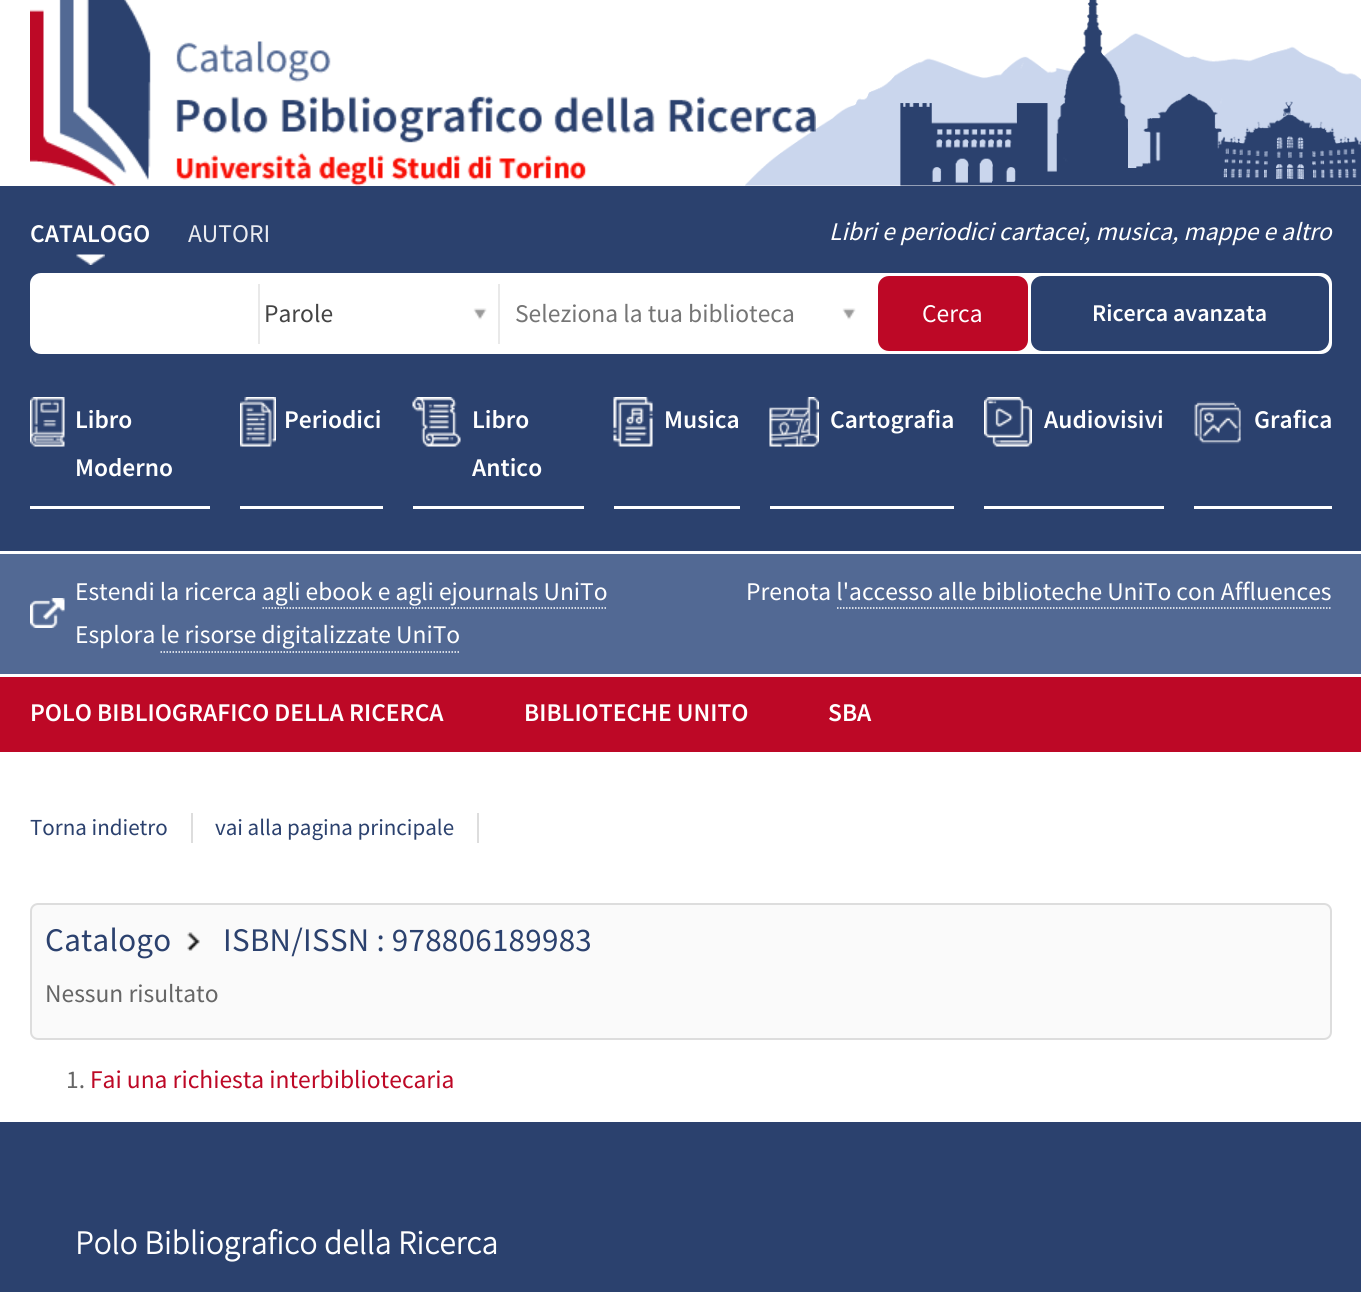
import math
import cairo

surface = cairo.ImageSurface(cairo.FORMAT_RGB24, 1361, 1292)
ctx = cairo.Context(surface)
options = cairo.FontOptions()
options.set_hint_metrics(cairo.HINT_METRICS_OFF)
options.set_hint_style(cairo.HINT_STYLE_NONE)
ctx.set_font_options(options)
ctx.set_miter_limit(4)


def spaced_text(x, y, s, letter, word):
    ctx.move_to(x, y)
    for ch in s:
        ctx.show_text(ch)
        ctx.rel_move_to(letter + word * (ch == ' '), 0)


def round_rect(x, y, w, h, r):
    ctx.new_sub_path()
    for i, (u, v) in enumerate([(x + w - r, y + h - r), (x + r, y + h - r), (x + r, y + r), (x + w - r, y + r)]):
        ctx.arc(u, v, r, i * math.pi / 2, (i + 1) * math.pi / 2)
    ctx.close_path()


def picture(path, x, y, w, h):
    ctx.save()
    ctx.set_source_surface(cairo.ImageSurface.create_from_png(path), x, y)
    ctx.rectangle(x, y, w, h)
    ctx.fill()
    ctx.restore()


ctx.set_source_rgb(1, 1, 1)
ctx.paint()
picture("img1.png", 745, 0, 616, 186)
picture("img2.png", 30, 0, 786, 186)
ctx.set_source_rgb(0.169, 0.255, 0.431)
ctx.rectangle(0, 186, 1361, 365)
ctx.fill()
ctx.select_font_face("Source Sans Pro SemiBold")
ctx.set_font_size(25.5)
ctx.set_source_rgb(1, 1, 1)
ctx.move_to(30, 242)
ctx.show_text("CATALOGO")
picture("img3.png", 76, 254, 29, 11)
ctx.select_font_face("Source Sans Pro")
ctx.set_source_rgb(0.918, 0.925, 0.945)
ctx.move_to(188, 242)
ctx.show_text("AUTORI")
ctx.select_font_face("Source Sans Pro", cairo.FONT_SLANT_ITALIC)
ctx.set_source_rgb(1, 1, 1)
ctx.move_to(829, 240)
ctx.show_text("Libri e periodici cartacei, musica, mappe e altro")
round_rect(31.5, 274.5, 1299, 78, 9.5)
ctx.fill_preserve()
ctx.set_line_width(3)
ctx.stroke()
ctx.set_source_rgb(0.914, 0.914, 0.914)
ctx.rectangle(498, 284, 2, 60)
ctx.fill()
ctx.rectangle(258, 284, 2, 60)
ctx.fill()
picture("img4.png", 473, 308, 14, 12)
ctx.select_font_face("Source Sans Pro")
ctx.set_source_rgb(0.267, 0.267, 0.267)
ctx.move_to(264, 322)
ctx.show_text("Parole")
ctx.set_source_rgb(0.459, 0.459, 0.459)
ctx.move_to(515, 322)
ctx.show_text("Seleziona la tua biblioteca")
picture("img4.png", 842, 308, 14, 12)
ctx.set_source_rgb(0.741, 0.035, 0.149)
round_rect(878, 276, 150, 75, 11)
ctx.fill()
ctx.set_source_rgb(1, 1, 1)
ctx.move_to(922, 322)
ctx.show_text("Cerca")
ctx.set_source_rgb(0.169, 0.255, 0.431)
round_rect(1031, 276, 298, 75, 11)
ctx.fill()
ctx.select_font_face("Source Sans Pro SemiBold")
ctx.set_font_size(24)
ctx.set_source_rgb(1, 1, 1)
ctx.move_to(1092, 321)
ctx.show_text("Ricerca avanzata")
picture("img5.png", 30, 397, 35, 50)
ctx.rectangle(30, 506, 180, 3)
ctx.fill()
ctx.set_font_size(25.5)
ctx.move_to(75, 428)
ctx.show_text("Libro")
ctx.move_to(75, 476)
ctx.show_text("Moderno")
picture("img6.png", 240, 397, 36, 50)
ctx.rectangle(240, 506, 143, 3)
ctx.fill()
ctx.move_to(284, 428)
ctx.show_text("Periodici")
picture("img7.png", 412, 397, 49, 50)
ctx.rectangle(413, 506, 171, 3)
ctx.fill()
ctx.move_to(472, 428)
ctx.show_text("Libro")
ctx.move_to(472, 476)
ctx.show_text("Antico")
picture("img8.png", 613, 397, 40, 50)
ctx.rectangle(614, 506, 126, 3)
ctx.fill()
ctx.move_to(664, 428)
ctx.show_text("Musica")
picture("img9.png", 769, 397, 50, 50)
ctx.rectangle(770, 506, 184, 3)
ctx.fill()
ctx.move_to(830, 428)
ctx.show_text("Cartografia")
picture("img10.png", 984, 397, 48, 50)
ctx.rectangle(984, 506, 180, 3)
ctx.fill()
ctx.move_to(1044, 428)
ctx.show_text("Audiovisivi")
picture("img11.png", 1194, 401, 47, 43)
ctx.rectangle(1194, 506, 138, 3)
ctx.fill()
ctx.move_to(1254, 428)
ctx.show_text("Grafica")
ctx.set_source_rgb(0.322, 0.412, 0.58)
ctx.rectangle(0, 554, 1361, 120)
ctx.fill()
picture("img12.png", 30, 598, 35, 30)
ctx.select_font_face("Source Sans Pro")
ctx.set_source_rgb(1, 1, 1)
ctx.move_to(75, 600)
ctx.show_text("Estendi la ricerca agli ebook e agli ejournals UniTo")
ctx.new_path()
ctx.move_to(262.5, 608)
ctx.line_to(607.5, 608)
ctx.set_line_width(1.5)
ctx.set_dash([1.5, 1.5])
ctx.stroke()
ctx.move_to(746, 600)
ctx.show_text("Prenota l'accesso alle biblioteche UniTo con Affluences")
ctx.new_path()
ctx.move_to(837, 608)
ctx.line_to(1332, 608)
ctx.stroke()
ctx.move_to(75, 643)
ctx.show_text("Esplora le risorse digitalizzate UniTo")
ctx.new_path()
ctx.move_to(160.5, 652)
ctx.line_to(460.5, 652)
ctx.stroke()
ctx.set_source_rgb(0.741, 0.035, 0.149)
ctx.rectangle(0, 677, 1361, 75)
ctx.fill()
ctx.select_font_face("Source Sans Pro SemiBold")
ctx.set_source_rgb(1, 1, 1)
ctx.move_to(30, 721)
ctx.show_text("POLO BIBLIOGRAFICO DELLA RICERCA")
ctx.move_to(524, 721)
ctx.show_text("BIBLIOTECHE UNITO")
ctx.move_to(828, 721)
ctx.show_text("SBA")
ctx.select_font_face("Source Sans Pro")
ctx.set_font_size(23)
ctx.set_source_rgb(0.169, 0.255, 0.431)
ctx.move_to(30, 835)
ctx.show_text("Torna indietro")
ctx.set_source_rgb(0.867, 0.867, 0.867)
ctx.rectangle(191, 813, 2, 30)
ctx.fill()
ctx.set_source_rgb(0.169, 0.255, 0.431)
ctx.move_to(215, 835)
ctx.show_text("vai alla pagina principale")
ctx.set_source_rgb(0.867, 0.867, 0.867)
ctx.rectangle(477, 813, 2, 30)
ctx.fill()
ctx.set_source_rgb(0.98, 0.98, 0.98)
round_rect(31, 904, 1300, 135, 7)
ctx.fill_preserve()
ctx.set_source_rgb(0.867, 0.867, 0.867)
ctx.set_line_width(2)
ctx.set_dash([])
ctx.stroke()
ctx.set_font_size(33)
ctx.set_source_rgb(0.169, 0.255, 0.431)
spaced_text(45, 951, "Catalogo", 0.3, 0)
picture("img13.png", 187, 932, 13, 19)
spaced_text(223, 951, "ISBN/ISSN : 978806189983", 0.3, 0)
ctx.set_font_size(25.5)
ctx.set_source_rgb(0.4, 0.4, 0.4)
ctx.move_to(45, 1002)
ctx.show_text("Nessun risultato")
ctx.move_to(66, 1088)
ctx.show_text("1.")
ctx.set_source_rgb(0.741, 0.035, 0.149)
ctx.move_to(90, 1088)
ctx.show_text("Fai una richiesta interbibliotecaria")
ctx.set_source_rgb(0.169, 0.255, 0.431)
ctx.rectangle(0, 1122, 1361, 170)
ctx.fill()
ctx.select_font_face("Source Sans Pro", cairo.FONT_SLANT_NORMAL, cairo.FONT_WEIGHT_BOLD)
ctx.set_font_size(33)
ctx.set_source_rgb(1, 1, 1)
spaced_text(75, 1254, "Polo Bibliografico della Ricerca", 0.3, 0)
surface.write_to_png("page.png")
